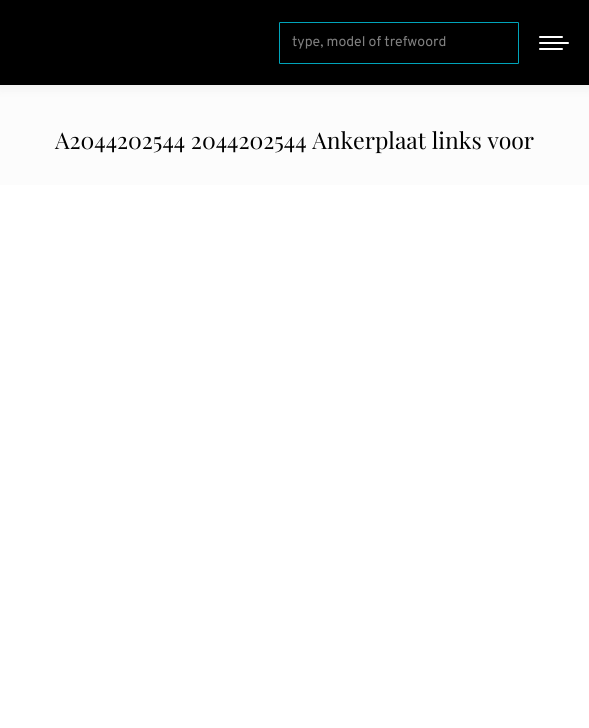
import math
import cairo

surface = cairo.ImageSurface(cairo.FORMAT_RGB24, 589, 728)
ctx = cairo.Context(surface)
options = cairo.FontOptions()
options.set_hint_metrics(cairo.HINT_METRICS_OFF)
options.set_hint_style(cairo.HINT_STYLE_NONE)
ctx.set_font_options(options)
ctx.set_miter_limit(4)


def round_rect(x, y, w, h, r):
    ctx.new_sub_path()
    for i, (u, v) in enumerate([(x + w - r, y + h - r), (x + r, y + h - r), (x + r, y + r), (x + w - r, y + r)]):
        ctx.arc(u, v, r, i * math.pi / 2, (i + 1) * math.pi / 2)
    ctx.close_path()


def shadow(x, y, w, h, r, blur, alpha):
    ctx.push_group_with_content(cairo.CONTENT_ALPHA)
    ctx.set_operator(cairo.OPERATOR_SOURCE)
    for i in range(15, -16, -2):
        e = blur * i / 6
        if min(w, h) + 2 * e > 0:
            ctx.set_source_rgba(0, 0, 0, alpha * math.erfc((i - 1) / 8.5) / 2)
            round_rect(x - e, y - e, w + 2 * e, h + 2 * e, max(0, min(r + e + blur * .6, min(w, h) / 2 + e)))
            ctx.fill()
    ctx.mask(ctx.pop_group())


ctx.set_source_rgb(1, 1, 1)
ctx.paint()
ctx.set_source_rgb(0.988, 0.988, 0.988)
ctx.rectangle(0, 85, 589, 100)
ctx.fill()
ctx.set_source_rgb(0, 0, 0)
shadow(-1, -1, 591, 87, 0, 7.5, 0.07)
ctx.set_source_rgb(0, 0, 0)
ctx.rectangle(0, 0, 589, 85)
ctx.fill()
round_rect(279.5, 22.5, 239, 41, 0.5)
ctx.set_source_rgb(0, 0.643, 0.729)
ctx.set_line_width(1)
ctx.stroke()
ctx.select_font_face("Overpass")
ctx.set_font_size(14)
ctx.set_source_rgb(0.502, 0.502, 0.502)
ctx.move_to(292, 46)
ctx.show_text("type, model of trefwoord")
ctx.set_source_rgb(1, 1, 1)
round_rect(539, 36, 24, 2, 1)
ctx.fill()
round_rect(539, 42, 30, 2, 1)
ctx.fill()
round_rect(539, 48, 24, 2, 1)
ctx.fill()
ctx.select_font_face("Playfair Display")
ctx.set_font_size(23)
ctx.set_source_rgb(0, 0, 0)
ctx.move_to(55, 149)
ctx.show_text("A2044202544 2044202544 Ankerplaat links voor")
surface.write_to_png("page.png")
